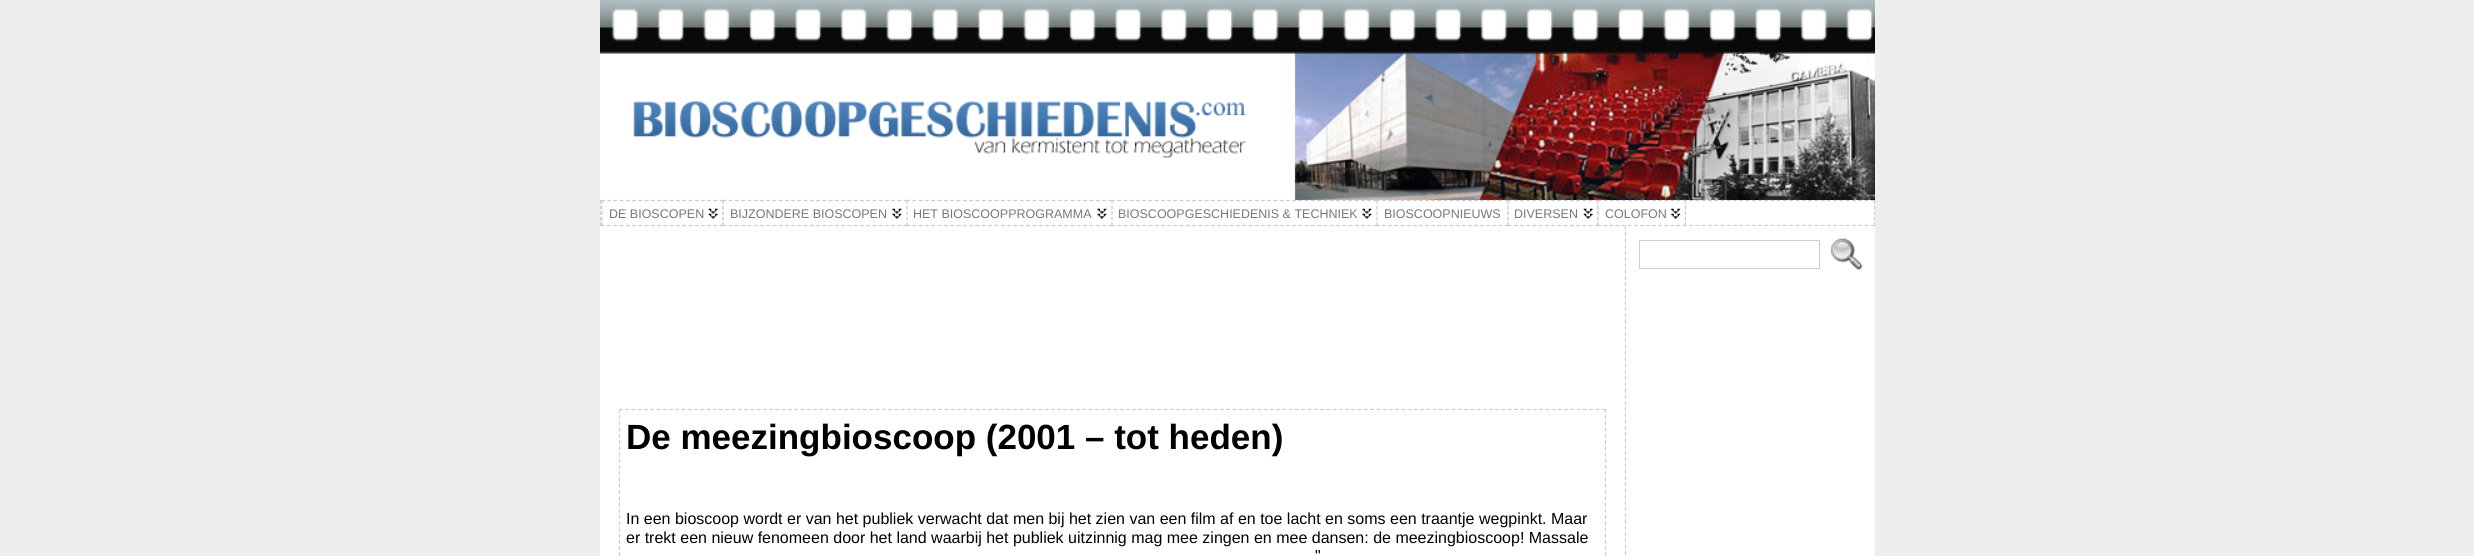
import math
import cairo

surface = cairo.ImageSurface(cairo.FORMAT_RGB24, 2474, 556)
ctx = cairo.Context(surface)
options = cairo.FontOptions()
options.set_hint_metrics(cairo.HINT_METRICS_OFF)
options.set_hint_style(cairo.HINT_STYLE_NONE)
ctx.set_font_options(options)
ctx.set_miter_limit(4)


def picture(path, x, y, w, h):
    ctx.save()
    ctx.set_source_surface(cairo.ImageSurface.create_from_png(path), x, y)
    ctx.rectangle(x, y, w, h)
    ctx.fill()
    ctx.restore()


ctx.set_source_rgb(0.933, 0.933, 0.933)
ctx.paint()
ctx.set_source_rgb(1, 1, 1)
ctx.rectangle(600, 200, 1275, 356)
ctx.fill()
ctx.new_path()
ctx.move_to(600, 200.5)
ctx.line_to(1875, 200.5)
ctx.set_source_rgb(0.8, 0.8, 0.8)
ctx.set_line_width(1.2)
ctx.set_dash([3.75, 2.51])
ctx.stroke()
picture("img1.png", 600, 0, 1275, 200)
ctx.new_path()
ctx.move_to(1874.5, 200)
ctx.line_to(1874.5, 226)
ctx.set_dash([3.75, 1.88])
ctx.stroke()
ctx.new_path()
ctx.move_to(600, 225.5)
ctx.line_to(1875, 225.5)
ctx.set_dash([3.75, 2.51])
ctx.stroke()
ctx.new_path()
ctx.move_to(600.5, 200)
ctx.line_to(600.5, 226)
ctx.set_dash([3.75, 1.88])
ctx.stroke()
ctx.set_source_rgb(1, 1, 1)
ctx.rectangle(601, 200, 122, 26)
ctx.fill()
picture("img2.png", 708, 208, 10, 11)
ctx.new_path()
ctx.move_to(601, 200.5)
ctx.line_to(724, 200.5)
ctx.set_source_rgb(0.8, 0.8, 0.8)
ctx.set_dash([3.75, 2.5])
ctx.stroke()
ctx.new_path()
ctx.move_to(723, 200)
ctx.line_to(723, 226)
ctx.set_dash([3.75, 1.88])
ctx.stroke()
ctx.new_path()
ctx.move_to(601, 225.5)
ctx.line_to(724, 225.5)
ctx.set_dash([3.75, 2.5])
ctx.stroke()
ctx.new_path()
ctx.move_to(602, 200)
ctx.line_to(602, 226)
ctx.set_dash([3.75, 1.88])
ctx.stroke()
ctx.select_font_face("Liberation Sans")
ctx.set_font_size(12.5)
ctx.set_source_rgb(0.467, 0.467, 0.467)
ctx.move_to(609, 218)
ctx.show_text("DE BIOSCOPEN")
ctx.set_source_rgb(1, 1, 1)
ctx.rectangle(723, 200, 182, 26)
ctx.fill()
picture("img3.png", 892, 208, 10, 11)
ctx.new_path()
ctx.move_to(722.5, 200.5)
ctx.line_to(907.5, 200.5)
ctx.set_source_rgb(0.8, 0.8, 0.8)
ctx.set_dash([3.75, 2.5])
ctx.stroke()
ctx.new_path()
ctx.move_to(722.5, 225.5)
ctx.line_to(907.5, 225.5)
ctx.stroke()
ctx.new_path()
ctx.move_to(723, 200)
ctx.line_to(723, 226)
ctx.set_dash([3.75, 1.88])
ctx.stroke()
ctx.set_source_rgb(0.467, 0.467, 0.467)
ctx.move_to(730, 218)
ctx.show_text("BIJZONDERE BIOSCOPEN")
ctx.set_source_rgb(1, 1, 1)
ctx.rectangle(906, 200, 205, 26)
ctx.fill()
picture("img4.png", 1097, 208, 10, 11)
ctx.new_path()
ctx.move_to(906, 200.5)
ctx.line_to(1112.5, 200.5)
ctx.set_source_rgb(0.8, 0.8, 0.8)
ctx.set_dash([3.75, 2.58])
ctx.stroke()
ctx.new_path()
ctx.move_to(906, 225.5)
ctx.line_to(1112.5, 225.5)
ctx.stroke()
ctx.new_path()
ctx.move_to(907, 200)
ctx.line_to(907, 226)
ctx.set_dash([3.75, 1.88])
ctx.stroke()
ctx.set_source_rgb(0.467, 0.467, 0.467)
ctx.move_to(913, 218)
ctx.show_text("HET BIOSCOOPPROGRAMMA")
ctx.set_source_rgb(1, 1, 1)
ctx.rectangle(1111, 200, 263, 26)
ctx.fill()
picture("img3.png", 1362, 208, 10, 11)
ctx.new_path()
ctx.move_to(1111, 200.5)
ctx.line_to(1377.5, 200.5)
ctx.set_source_rgb(0.8, 0.8, 0.8)
ctx.set_dash([3.75, 2.5])
ctx.stroke()
ctx.new_path()
ctx.move_to(1111, 225.5)
ctx.line_to(1377.5, 225.5)
ctx.stroke()
ctx.new_path()
ctx.move_to(1112, 200)
ctx.line_to(1112, 226)
ctx.set_dash([3.75, 1.88])
ctx.stroke()
ctx.set_source_rgb(0.467, 0.467, 0.467)
ctx.move_to(1118, 218)
ctx.show_text("BIOSCOOPGESCHIEDENIS & TECHNIEK")
ctx.set_source_rgb(1, 1, 1)
ctx.rectangle(1376, 200, 132, 26)
ctx.fill()
ctx.new_path()
ctx.move_to(1376, 200.5)
ctx.line_to(1509, 200.5)
ctx.set_source_rgb(0.8, 0.8, 0.8)
ctx.set_dash([3.75, 2.38])
ctx.stroke()
ctx.new_path()
ctx.move_to(1508, 200)
ctx.line_to(1508, 226)
ctx.set_dash([3.75, 1.88])
ctx.stroke()
ctx.new_path()
ctx.move_to(1376, 225.5)
ctx.line_to(1509, 225.5)
ctx.set_dash([3.75, 2.38])
ctx.stroke()
ctx.new_path()
ctx.move_to(1377, 200)
ctx.line_to(1377, 226)
ctx.set_dash([3.75, 1.88])
ctx.stroke()
ctx.set_source_rgb(0.467, 0.467, 0.467)
ctx.move_to(1384, 218)
ctx.show_text("BIOSCOOPNIEUWS")
ctx.set_source_rgb(1, 1, 1)
ctx.rectangle(1508, 200, 90, 26)
ctx.fill()
picture("img5.png", 1583, 208, 10, 11)
ctx.new_path()
ctx.move_to(1507.5, 200.5)
ctx.line_to(1599, 200.5)
ctx.set_source_rgb(0.8, 0.8, 0.8)
ctx.set_dash([3.75, 2.5])
ctx.stroke()
ctx.new_path()
ctx.move_to(1598, 200)
ctx.line_to(1598, 226)
ctx.set_dash([3.75, 1.88])
ctx.stroke()
ctx.new_path()
ctx.move_to(1507.5, 225.5)
ctx.line_to(1599, 225.5)
ctx.set_dash([3.75, 2.5])
ctx.stroke()
ctx.new_path()
ctx.move_to(1508, 200)
ctx.line_to(1508, 226)
ctx.set_dash([3.75, 1.88])
ctx.stroke()
ctx.set_source_rgb(0.467, 0.467, 0.467)
ctx.move_to(1514, 218)
ctx.show_text("DIVERSEN")
ctx.set_source_rgb(1, 1, 1)
ctx.rectangle(1598, 200, 88, 26)
ctx.fill()
picture("img6.png", 1671, 208, 10, 11)
ctx.new_path()
ctx.move_to(1597.5, 200.5)
ctx.line_to(1686, 200.5)
ctx.set_source_rgb(0.8, 0.8, 0.8)
ctx.set_dash([3.75, 2.33])
ctx.stroke()
ctx.new_path()
ctx.move_to(1685.5, 200)
ctx.line_to(1685.5, 226)
ctx.set_dash([3.75, 1.88])
ctx.stroke()
ctx.set_source_rgb(1, 1, 1)
ctx.rectangle(1627, 226, 247, 1)
ctx.fill()
ctx.new_path()
ctx.move_to(1625.5, 226)
ctx.line_to(1625.5, 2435)
ctx.set_source_rgb(0.8, 0.8, 0.8)
ctx.set_dash([3.75, 2.5])
ctx.stroke()
ctx.new_path()
ctx.move_to(1597.5, 225.5)
ctx.line_to(1686, 225.5)
ctx.set_dash([3.75, 2.33])
ctx.stroke()
ctx.new_path()
ctx.move_to(1598, 200)
ctx.line_to(1598, 226)
ctx.set_dash([3.75, 1.88])
ctx.stroke()
ctx.set_source_rgb(0.467, 0.467, 0.467)
ctx.move_to(1605, 218)
ctx.show_text("COLOFON")
ctx.new_path()
ctx.move_to(619, 409.5)
ctx.line_to(1606, 409.5)
ctx.set_source_rgb(0.8, 0.8, 0.8)
ctx.set_dash([3.75, 2.51])
ctx.stroke()
ctx.new_path()
ctx.move_to(1605.5, 409)
ctx.line_to(1605.5, 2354)
ctx.set_dash([3.75, 2.49])
ctx.stroke()
ctx.new_path()
ctx.move_to(619.5, 409)
ctx.line_to(619.5, 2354)
ctx.stroke()
ctx.select_font_face("Liberation Sans", cairo.FONT_SLANT_NORMAL, cairo.FONT_WEIGHT_BOLD)
ctx.set_font_size(35)
ctx.set_source_rgb(0, 0, 0)
ctx.move_to(626, 449)
ctx.show_text("De meezingbioscoop (2001 – tot heden)")
ctx.select_font_face("Liberation Sans")
ctx.set_font_size(16)
ctx.move_to(626, 524)
ctx.show_text("In een bioscoop wordt er van het publiek verwacht dat men bij het zien van een film af en toe lacht en soms een traantje wegpinkt. Maar")
ctx.move_to(626, 543)
ctx.show_text("er trekt een nieuw fenomeen door het land waarbij het publiek uitzinnig mag mee zingen en mee dansen: de meezingbioscoop! Massale")
ctx.move_to(1315, 561)
ctx.show_text("\"")
ctx.rectangle(1639.5, 240.5, 180, 28)
ctx.set_source_rgb(0.8, 0.8, 0.8)
ctx.set_line_width(1)
ctx.set_dash([])
ctx.stroke()
picture("img7.png", 1831, 238, 32, 32)
surface.write_to_png("page.png")
